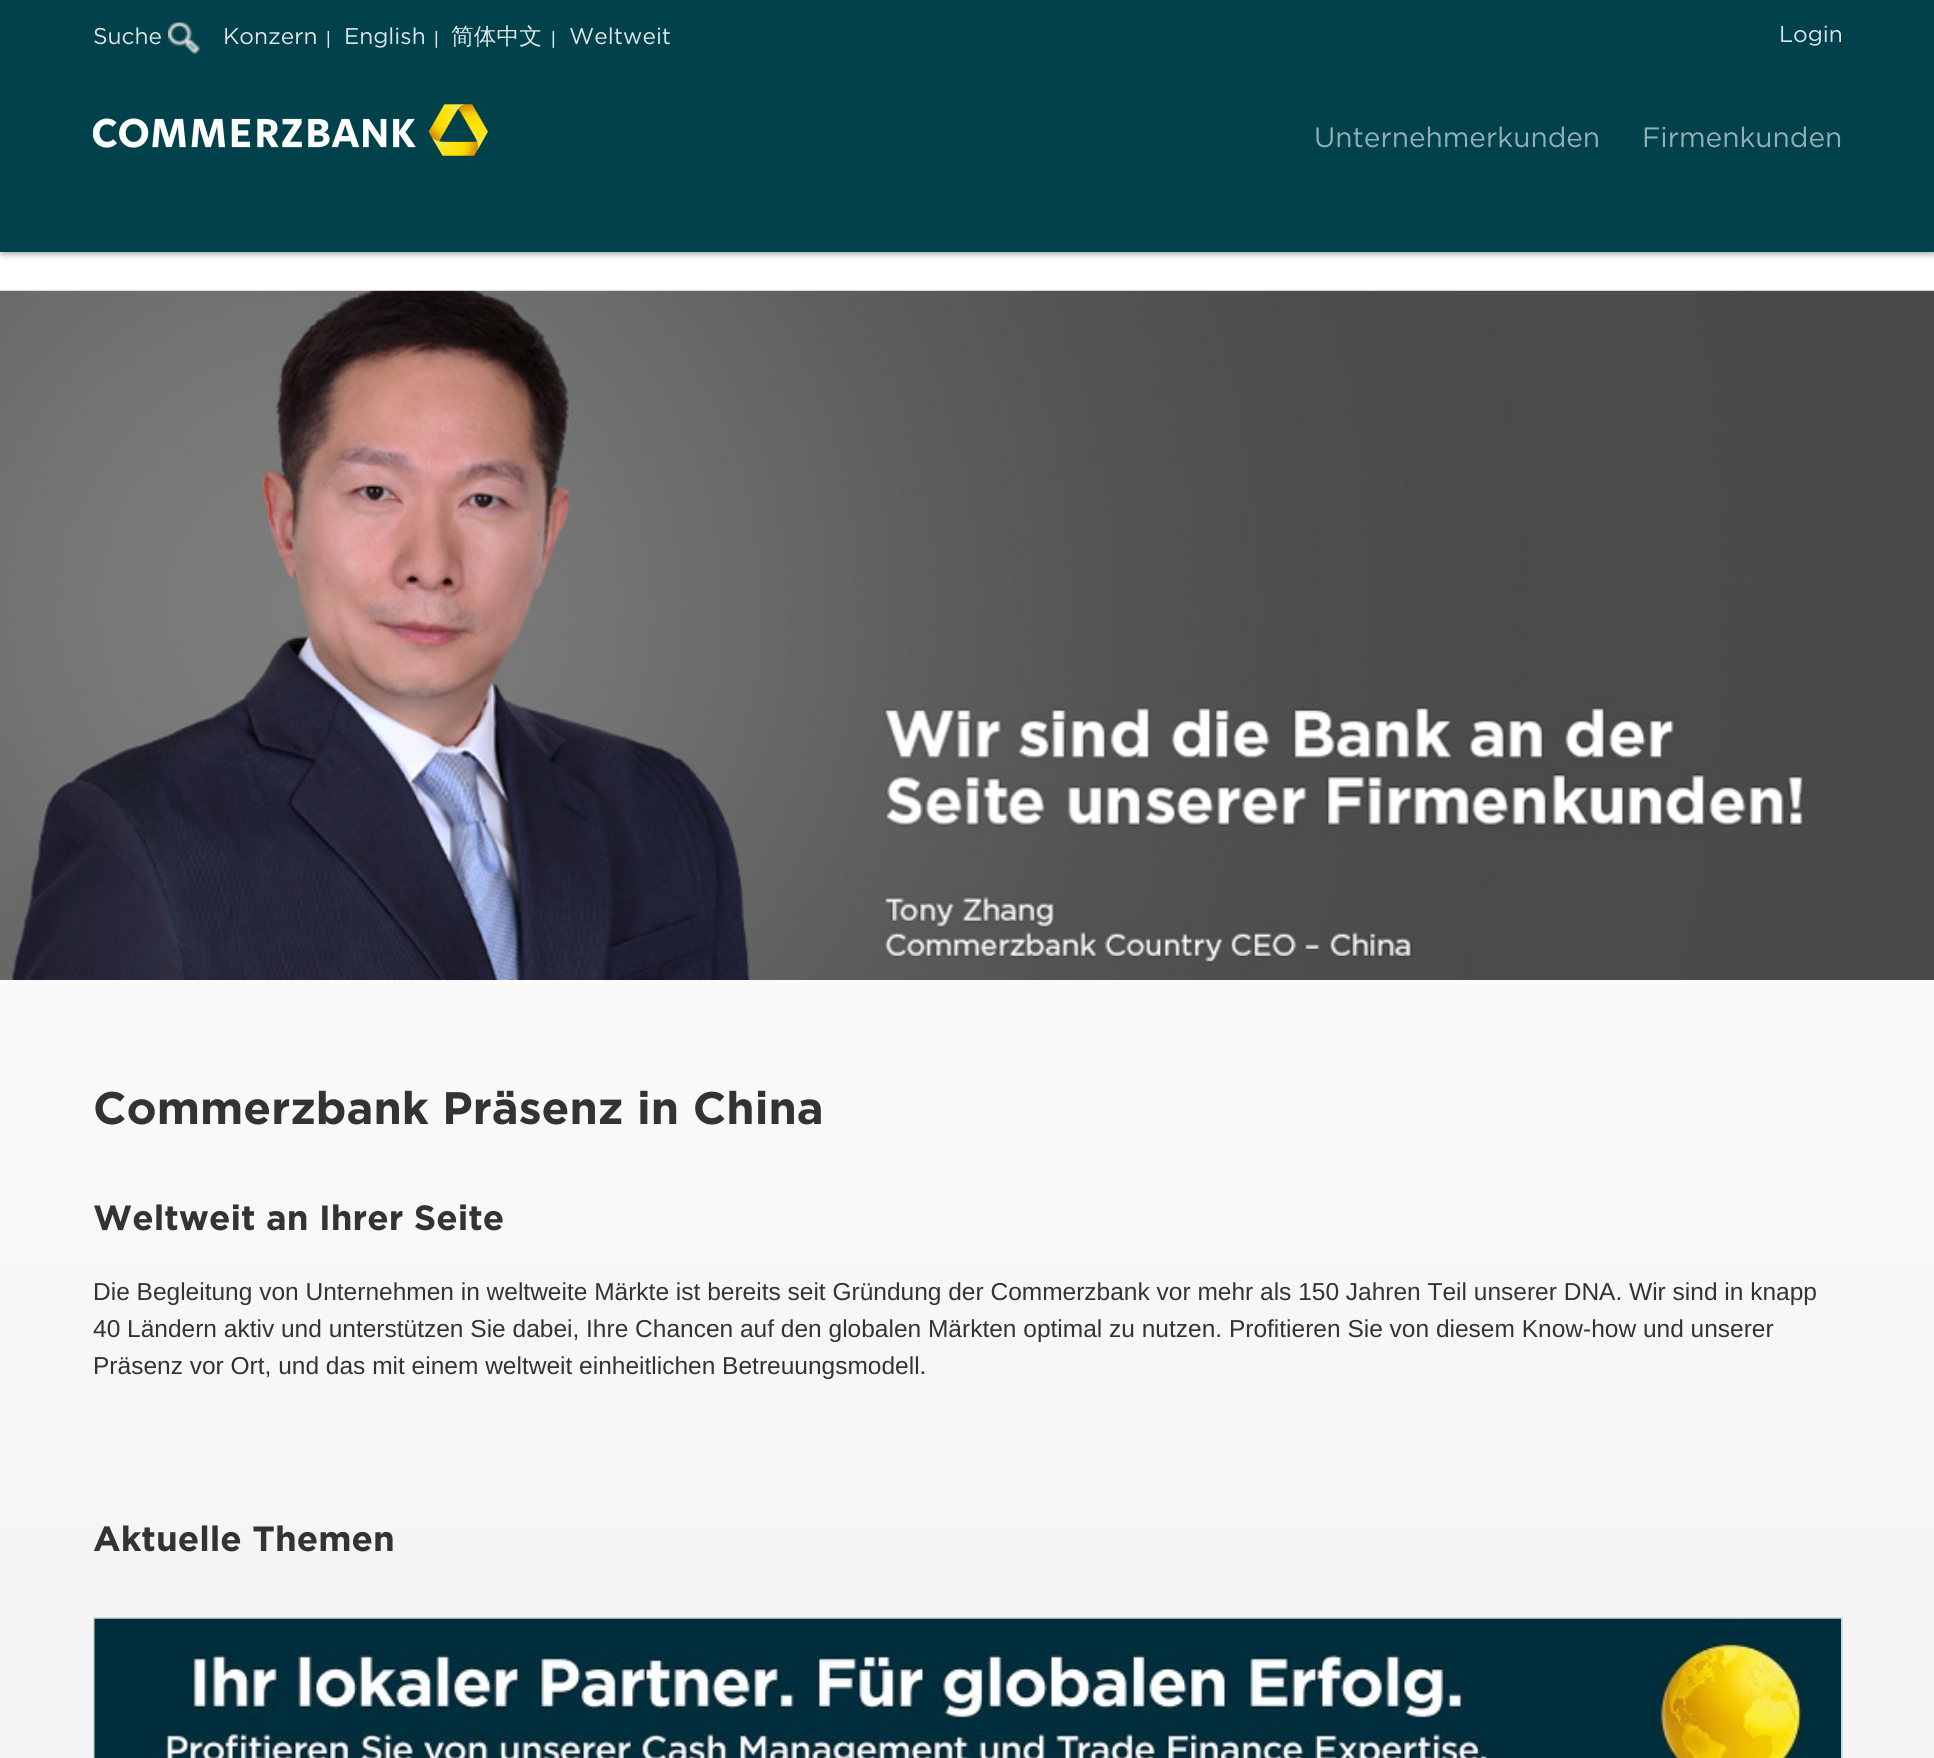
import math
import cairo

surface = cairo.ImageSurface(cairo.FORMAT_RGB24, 1934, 1758)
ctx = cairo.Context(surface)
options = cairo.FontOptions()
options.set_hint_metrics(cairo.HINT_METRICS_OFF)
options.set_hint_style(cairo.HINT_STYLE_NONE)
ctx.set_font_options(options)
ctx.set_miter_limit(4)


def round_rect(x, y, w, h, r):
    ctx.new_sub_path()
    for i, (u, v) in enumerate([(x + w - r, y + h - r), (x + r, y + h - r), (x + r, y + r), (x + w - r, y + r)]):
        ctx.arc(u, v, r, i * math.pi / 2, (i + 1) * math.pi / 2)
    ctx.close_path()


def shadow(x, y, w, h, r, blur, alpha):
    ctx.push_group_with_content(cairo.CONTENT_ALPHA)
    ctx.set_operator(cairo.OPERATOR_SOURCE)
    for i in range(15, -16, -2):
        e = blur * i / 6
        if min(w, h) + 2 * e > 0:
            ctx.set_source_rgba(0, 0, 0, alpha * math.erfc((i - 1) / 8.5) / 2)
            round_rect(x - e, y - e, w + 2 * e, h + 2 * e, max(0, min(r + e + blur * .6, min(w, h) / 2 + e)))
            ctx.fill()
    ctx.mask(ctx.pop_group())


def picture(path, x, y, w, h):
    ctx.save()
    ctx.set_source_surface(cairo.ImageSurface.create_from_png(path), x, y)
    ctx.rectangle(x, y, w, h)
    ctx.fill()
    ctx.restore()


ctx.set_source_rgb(1, 1, 1)
ctx.paint()
gradient = cairo.LinearGradient(968, 308, 968, 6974)
gradient.add_color_stop_rgba(0, 1, 1, 1, 1)
gradient.add_color_stop_rgba(0.5, 0.898, 0.898, 0.898, 1)
gradient.add_color_stop_rgba(1, 1, 1, 1, 1)
ctx.set_source(gradient)
ctx.rectangle(0, 980, 1934, 778)
ctx.fill()
ctx.set_source_rgb(0, 0, 0)
shadow(2, 5, 1932, 249, 0, 3.5, 0.36)
ctx.set_source_rgb(0, 0.255, 0.298)
ctx.rectangle(0, 0, 1934, 252)
ctx.fill()
ctx.select_font_face("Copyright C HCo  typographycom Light")
ctx.set_font_size(22.75)
ctx.set_source_rgb(0.863, 0.902, 0.902)
ctx.move_to(93, 44)
ctx.show_text("Suche")
picture("img1.png", 168, 22, 32, 32)
ctx.move_to(223, 44)
ctx.show_text("Konzern")
ctx.select_font_face("Liberation Sans")
ctx.set_font_size(18)
ctx.move_to(326, 44)
ctx.show_text("|")
ctx.select_font_face("Copyright C HCo  typographycom Light")
ctx.set_font_size(22.75)
ctx.move_to(344, 44)
ctx.show_text("English")
ctx.select_font_face("Liberation Sans")
ctx.set_font_size(18)
ctx.move_to(434, 44)
ctx.show_text("|")
ctx.select_font_face("WenQuanYi Zen Hei Medium")
ctx.set_font_size(22.75)
ctx.move_to(451, 44)
ctx.show_text("简体中文")
ctx.select_font_face("Liberation Sans")
ctx.set_font_size(18)
ctx.move_to(551, 44)
ctx.show_text("|")
ctx.select_font_face("Copyright C HCo  typographycom Light")
ctx.set_font_size(22.75)
ctx.move_to(569, 44)
ctx.show_text("Weltweit")
ctx.move_to(1779, 42)
ctx.show_text("Login")
picture("img2.png", 93, 104, 395, 52)
ctx.set_font_size(28)
ctx.set_source_rgb(0.569, 0.686, 0.706)
ctx.move_to(1314, 147)
ctx.show_text("Unternehmerkunden")
ctx.move_to(1642, 147)
ctx.show_text("Firmenkunden")
picture("img3.png", 0, 290, 1934, 690)
ctx.select_font_face("Copyright C HCo  typographycom")
ctx.set_font_size(45.5)
ctx.set_source_rgb(0.2, 0.2, 0.2)
ctx.move_to(93, 1124)
ctx.show_text("Commerzbank Präsenz in China")
ctx.set_font_size(35)
ctx.move_to(93, 1230)
ctx.show_text("Weltweit an Ihrer Seite")
ctx.select_font_face("Liberation Sans")
ctx.set_font_size(24.5)
ctx.move_to(93, 1300)
ctx.show_text("Die Begleitung von Unternehmen in weltweite Märkte ist bereits seit Gründung der Commerzbank vor mehr als 150 Jahren Teil unserer DNA. Wir sind in knapp")
ctx.move_to(93, 1337)
ctx.show_text("40 Ländern aktiv und unterstützen Sie dabei, Ihre Chancen auf den globalen Märkten optimal zu nutzen. Profitieren Sie von diesem Know-how und unserer")
ctx.move_to(93, 1374)
ctx.show_text("Präsenz vor Ort, und das mit einem weltweit einheitlichen Betreuungsmodell.")
ctx.select_font_face("Copyright C HCo  typographycom")
ctx.set_font_size(35)
ctx.move_to(93, 1551)
ctx.show_text("Aktuelle Themen")
ctx.rectangle(94, 1618, 1748, 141)
ctx.set_source_rgb(0.847, 0.847, 0.847)
ctx.stroke()
picture("img4.png", 94, 1618, 1747, 140)
surface.write_to_png("page.png")
